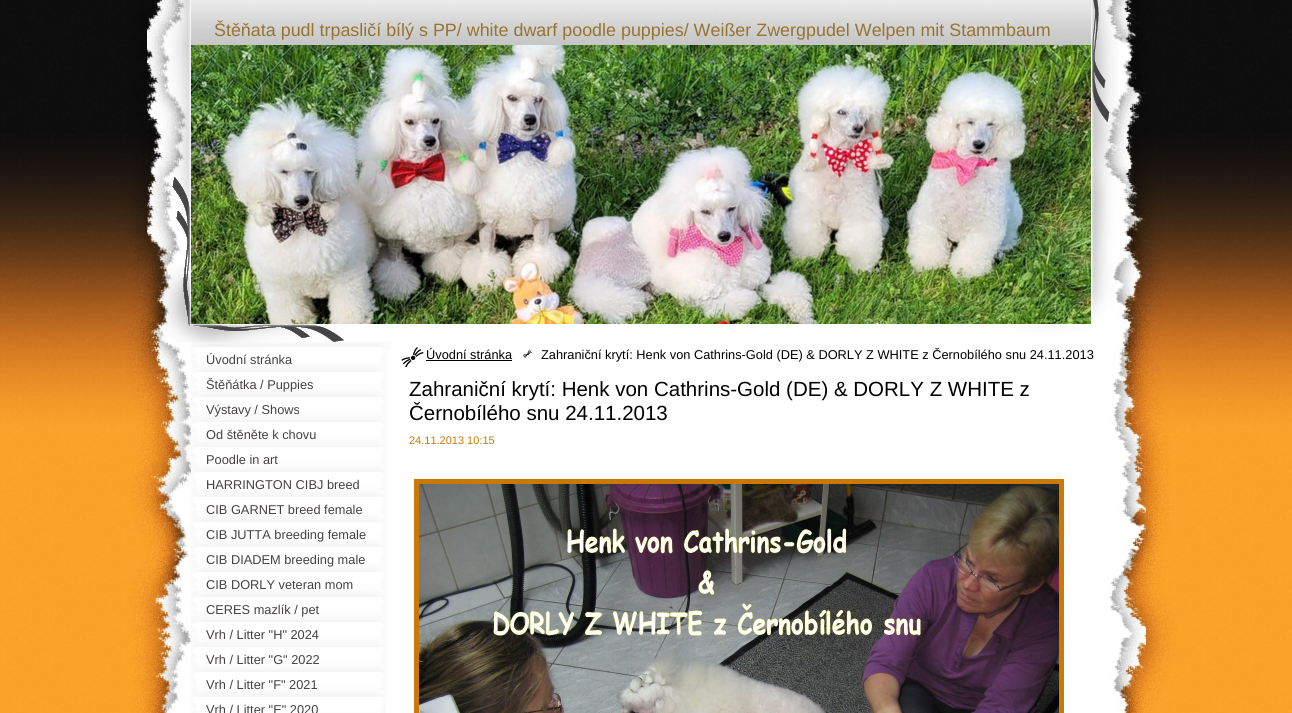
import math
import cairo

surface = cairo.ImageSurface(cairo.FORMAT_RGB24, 1292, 713)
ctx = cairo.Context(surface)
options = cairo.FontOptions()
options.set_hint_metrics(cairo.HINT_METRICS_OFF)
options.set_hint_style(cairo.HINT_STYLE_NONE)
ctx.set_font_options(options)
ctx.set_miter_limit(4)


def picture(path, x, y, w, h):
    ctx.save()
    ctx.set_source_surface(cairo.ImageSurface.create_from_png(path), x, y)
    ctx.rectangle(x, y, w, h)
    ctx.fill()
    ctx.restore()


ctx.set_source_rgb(1, 1, 1)
ctx.paint()
picture("img1.png", 0, 429, 1292, 284)
picture("img2.png", 0, 0, 1292, 429)
picture("img3.png", 161, 0, 957, 342)
ctx.select_font_face("Liberation Sans")
ctx.set_font_size(17.9)
ctx.set_source_rgb(0.592, 0.451, 0.188)
ctx.move_to(214, 36)
ctx.show_text("Štěňata pudl trpasličí bílý s PP/ white dwarf poodle puppies/ Weißer Zwergpudel Welpen mit Stammbaum")
picture("img4.png", 191, 45, 900, 279)
picture("img5.png", 191, 342, 200, 8)
picture("img6.png", 191, 347, 196, 25)
ctx.set_font_size(12.8)
ctx.set_source_rgb(0.271, 0.255, 0.263)
ctx.move_to(206, 364)
ctx.show_text("Úvodní stránka")
picture("img6.png", 191, 372, 196, 25)
ctx.move_to(206, 389)
ctx.show_text("Štěňátka / Puppies")
picture("img6.png", 191, 397, 196, 25)
ctx.move_to(206, 414)
ctx.show_text("Výstavy / Shows")
picture("img6.png", 191, 422, 196, 25)
ctx.move_to(206, 439)
ctx.show_text("Od štěněte k chovu")
picture("img6.png", 191, 447, 196, 25)
ctx.move_to(206, 464)
ctx.show_text("Poodle in art")
picture("img6.png", 191, 472, 196, 25)
ctx.move_to(206, 489)
ctx.show_text("HARRINGTON CIBJ breed")
picture("img6.png", 191, 497, 196, 25)
ctx.move_to(206, 514)
ctx.show_text("CIB GARNET breed female")
picture("img6.png", 191, 522, 196, 25)
ctx.move_to(206, 539)
ctx.show_text("CIB JUTTA breeding female")
picture("img6.png", 191, 547, 196, 25)
ctx.move_to(206, 564)
ctx.show_text("CIB DIADEM breeding male")
picture("img6.png", 191, 572, 196, 25)
ctx.move_to(206, 589)
ctx.show_text("CIB DORLY veteran mom")
picture("img6.png", 191, 597, 196, 25)
ctx.move_to(206, 614)
ctx.show_text("CERES mazlík / pet")
picture("img6.png", 191, 622, 196, 25)
ctx.move_to(206, 639)
ctx.show_text("Vrh / Litter \"H\" 2024")
picture("img6.png", 191, 647, 196, 25)
ctx.move_to(206, 664)
ctx.show_text("Vrh / Litter \"G\" 2022")
picture("img6.png", 191, 672, 196, 25)
ctx.move_to(206, 689)
ctx.show_text("Vrh / Litter \"F\" 2021")
picture("img7.png", 191, 697, 195, 16)
ctx.move_to(206, 714)
ctx.show_text("Vrh / Litter \"E\" 2020")
picture("img8.png", 401, 347, 23, 20)
ctx.set_source_rgb(0, 0, 0)
ctx.move_to(426, 359)
ctx.show_text("Úvodní stránka")
ctx.rectangle(426, 360, 86, 1)
ctx.fill()
picture("img9.png", 523, 350, 9, 9)
ctx.move_to(541, 359)
ctx.show_text("Zahraniční krytí: Henk von Cathrins-Gold (DE) & DORLY Z WHITE z Černobílého snu 24.11.2013")
ctx.set_font_size(20.5)
ctx.move_to(409, 396)
ctx.show_text("Zahraniční krytí: Henk von Cathrins-Gold (DE) & DORLY Z WHITE z")
ctx.move_to(409, 420)
ctx.show_text("Černobílého snu 24.11.2013")
ctx.set_font_size(11)
ctx.set_source_rgb(0.792, 0.471, 0.031)
ctx.move_to(409, 444)
ctx.show_text("24.11.2013 10:15")
ctx.rectangle(416.5, 481.5, 645, 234)
ctx.set_line_width(5)
ctx.stroke()
picture("img10.png", 419, 484, 640, 229)
surface.write_to_png("page.png")
